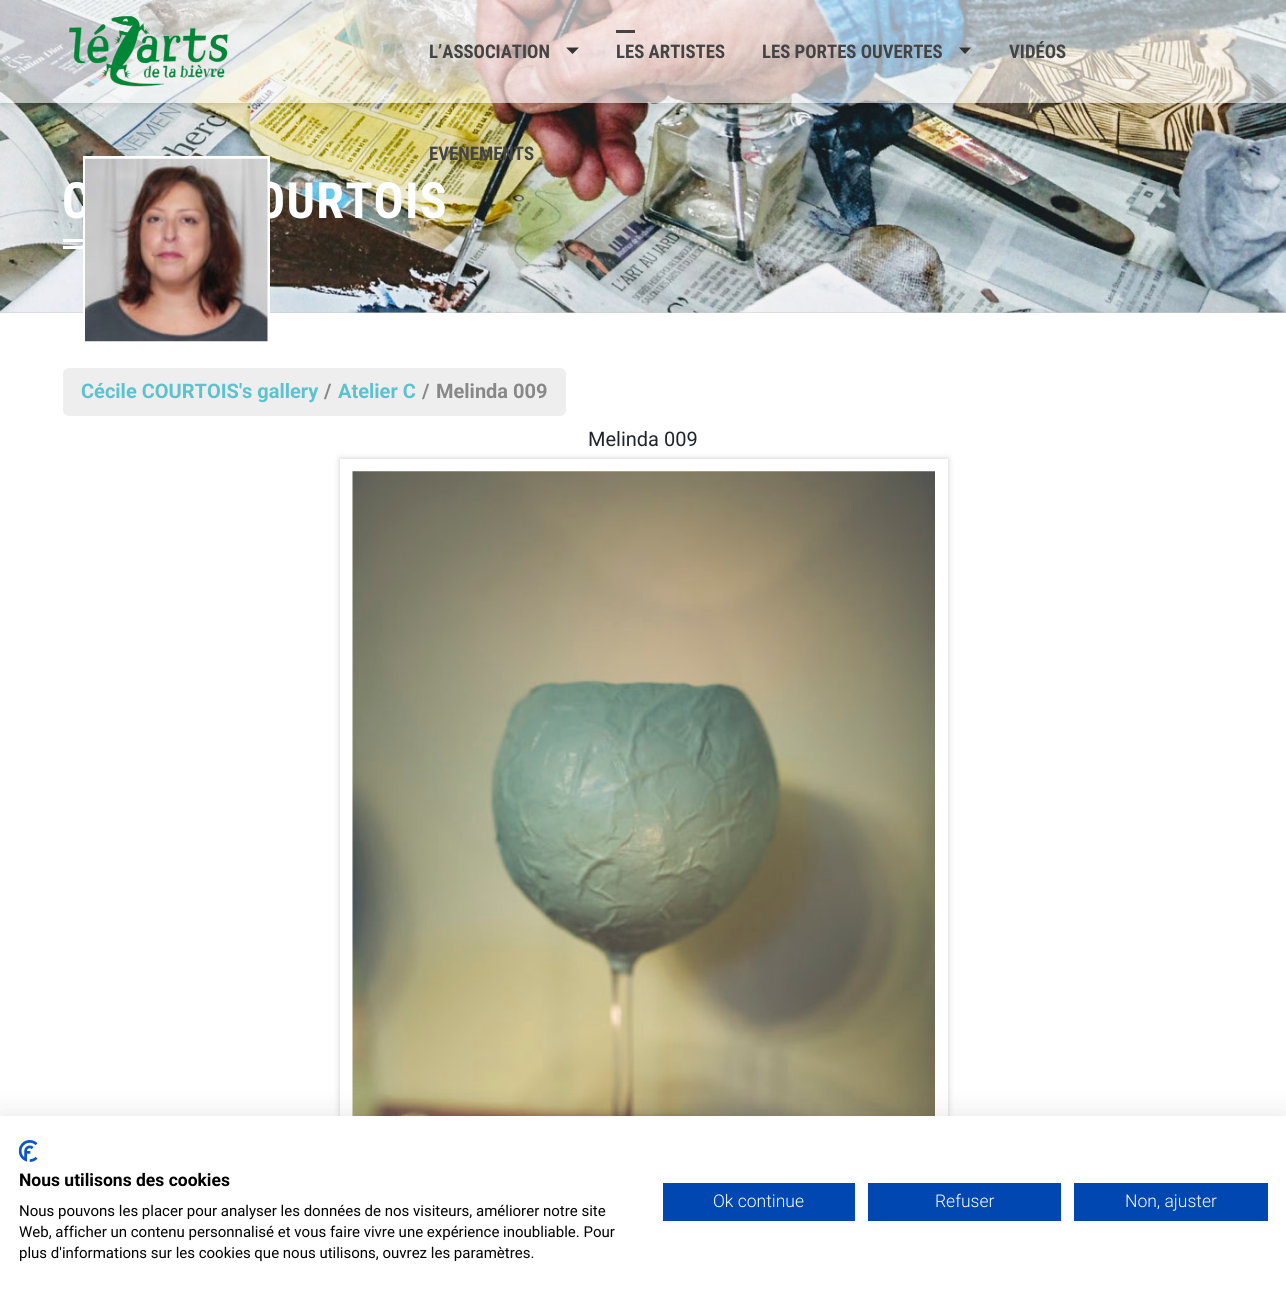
import math
import cairo

surface = cairo.ImageSurface(cairo.FORMAT_RGB24, 1286, 1297)
ctx = cairo.Context(surface)
options = cairo.FontOptions()
options.set_hint_metrics(cairo.HINT_METRICS_OFF)
options.set_hint_style(cairo.HINT_STYLE_NONE)
ctx.set_font_options(options)
ctx.set_miter_limit(4)


def spaced_text(x, y, s, letter, word):
    ctx.move_to(x, y)
    for ch in s:
        ctx.show_text(ch)
        ctx.rel_move_to(letter + word * (ch == ' '), 0)


def round_rect(x, y, w, h, r):
    ctx.new_sub_path()
    for i, (u, v) in enumerate([(x + w - r, y + h - r), (x + r, y + h - r), (x + r, y + r), (x + w - r, y + r)]):
        ctx.arc(u, v, r, i * math.pi / 2, (i + 1) * math.pi / 2)
    ctx.close_path()


def shadow(x, y, w, h, r, blur, alpha):
    ctx.push_group_with_content(cairo.CONTENT_ALPHA)
    ctx.set_operator(cairo.OPERATOR_SOURCE)
    for i in range(15, -16, -2):
        e = blur * i / 6
        if min(w, h) + 2 * e > 0:
            ctx.set_source_rgba(0, 0, 0, alpha * math.erfc((i - 1) / 8.5) / 2)
            round_rect(x - e, y - e, w + 2 * e, h + 2 * e, max(0, min(r + e + blur * .6, min(w, h) / 2 + e)))
            ctx.fill()
    ctx.mask(ctx.pop_group())


def picture(path, x, y, w, h):
    ctx.save()
    ctx.set_source_surface(cairo.ImageSurface.create_from_png(path), x, y)
    ctx.rectangle(x, y, w, h)
    ctx.fill()
    ctx.restore()


ctx.set_source_rgb(1, 1, 1)
ctx.paint()
ctx.set_source_rgb(0.8, 0.8, 0.8)
ctx.rectangle(0, 312, 1286, 1)
ctx.fill()
picture("img2.png", 0, 0, 1286, 313)
ctx.save()
ctx.set_fill_rule(cairo.FILL_RULE_EVEN_ODD)
ctx.new_path()
ctx.move_to(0, 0)
ctx.line_to(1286, 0)
ctx.line_to(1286, 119)
ctx.line_to(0, 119)
ctx.close_path()
ctx.move_to(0, 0)
ctx.line_to(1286, 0)
ctx.line_to(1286, 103)
ctx.line_to(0, 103)
ctx.close_path()
ctx.clip()
ctx.set_source_rgb(0, 0, 0)
shadow(0, 0, 1286, 103, 0, 5, 0.2)
ctx.restore()
ctx.set_source_rgba(1, 1, 1, 0.6)
ctx.rectangle(0, 0, 1286, 103)
ctx.fill()
picture("img1.png", 69, 16, 160, 71)
ctx.select_font_face("Roboto Condensed", cairo.FONT_SLANT_NORMAL, cairo.FONT_WEIGHT_BOLD)
ctx.set_font_size(18.75)
ctx.set_source_rgb(0.267, 0.267, 0.267)
ctx.move_to(429, 58)
ctx.show_text("L’ASSOCIATION")
ctx.set_source_rgb(0.2, 0.2, 0.2)
ctx.new_path()
ctx.move_to(566, 47.5)
ctx.line_to(579, 47.5)
ctx.line_to(572.5, 54)
ctx.close_path()
ctx.fill()
ctx.set_source_rgb(0.267, 0.267, 0.267)
ctx.rectangle(616, 30, 19, 3)
ctx.fill()
ctx.move_to(616, 58)
ctx.show_text("LES ARTISTES")
ctx.move_to(762, 58)
ctx.show_text("LES PORTES OUVERTES")
ctx.set_source_rgb(0.2, 0.2, 0.2)
ctx.new_path()
ctx.move_to(959, 47.5)
ctx.line_to(971, 47.5)
ctx.line_to(965, 54)
ctx.close_path()
ctx.fill()
ctx.set_source_rgb(0.267, 0.267, 0.267)
ctx.move_to(1009, 58)
ctx.show_text("VIDÉOS")
ctx.move_to(429, 160)
ctx.show_text("EVENEMENTS")
ctx.set_font_size(50)
ctx.set_source_rgb(1, 1, 1)
spaced_text(62, 218, "C", 1.25, 0)
spaced_text(255, 218, "OURTOIS", 1.25, 0)
ctx.rectangle(63, 239, 20, 3)
ctx.fill()
ctx.rectangle(63, 246, 25, 3)
ctx.fill()
ctx.rectangle(84.5, 157.5, 184, 185)
ctx.set_line_width(3)
ctx.stroke()
picture("img3.png", 85, 158, 183, 184)
ctx.set_source_rgb(0.933, 0.933, 0.933)
round_rect(63, 368, 503, 48, 6)
ctx.fill()
ctx.select_font_face("Roboto", cairo.FONT_SLANT_NORMAL, cairo.FONT_WEIGHT_BOLD)
ctx.set_font_size(20)
ctx.set_source_rgb(0.357, 0.761, 0.808)
ctx.move_to(81, 398)
ctx.show_text("Cécile COURTOIS's gallery")
ctx.set_source_rgb(0.533, 0.533, 0.533)
ctx.move_to(324, 398)
ctx.show_text("/")
ctx.set_source_rgb(0.357, 0.761, 0.808)
ctx.move_to(338, 398)
ctx.show_text("Atelier C")
ctx.set_source_rgb(0.533, 0.533, 0.533)
ctx.move_to(422, 398)
ctx.show_text("/")
ctx.move_to(436, 398)
ctx.show_text("Melinda 009")
ctx.select_font_face("Roboto")
ctx.set_source_rgb(0.129, 0.145, 0.161)
ctx.move_to(588, 446)
ctx.show_text("Melinda 009")
ctx.save()
ctx.set_fill_rule(cairo.FILL_RULE_EVEN_ODD)
ctx.new_path()
ctx.move_to(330, 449)
ctx.line_to(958, 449)
ctx.line_to(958, 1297)
ctx.line_to(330, 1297)
ctx.close_path()
ctx.move_to(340, 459)
ctx.line_to(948, 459)
ctx.line_to(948, 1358)
ctx.line_to(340, 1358)
ctx.close_path()
ctx.clip()
ctx.set_source_rgb(0.8, 0.8, 0.8)
shadow(340, 459, 608, 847, 0, 3, 1)
ctx.restore()
picture("img4.png", 352, 471, 583, 645)
ctx.set_source_rgb(0, 0, 0)
shadow(0, 1116, 1286, 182, 0, 15, 0.1)
ctx.set_source_rgb(1, 1, 1)
ctx.rectangle(0, 1116, 1286, 181)
ctx.fill()
picture("img5.png", 19, 1140, 19, 22)
ctx.select_font_face("Roboto", cairo.FONT_SLANT_NORMAL, cairo.FONT_WEIGHT_BOLD)
ctx.set_font_size(17.5)
ctx.set_source_rgb(0, 0, 0)
ctx.move_to(19, 1186)
ctx.show_text("Nous utilisons des cookies")
ctx.select_font_face("Roboto")
ctx.set_font_size(15)
ctx.move_to(19, 1216)
ctx.show_text("Nous pouvons les placer pour analyser les données de nos visiteurs, améliorer notre site")
ctx.move_to(19, 1237)
ctx.show_text("Web, afficher un contenu personnalisé et vous faire vivre une expérience inoubliable. Pour")
ctx.move_to(19, 1258)
ctx.show_text("plus d'informations sur les cookies que nous utilisons, ouvrez les paramètres.")
ctx.set_source_rgb(0, 0.278, 0.698)
ctx.rectangle(663, 1183, 192, 38)
ctx.fill()
ctx.select_font_face("Roboto Light")
ctx.set_font_size(17.5)
ctx.set_source_rgb(1, 1, 1)
ctx.move_to(713, 1207)
ctx.show_text("Ok continue")
ctx.set_source_rgb(0, 0.278, 0.698)
ctx.rectangle(868, 1183, 193, 38)
ctx.fill()
ctx.set_source_rgb(1, 1, 1)
ctx.move_to(935, 1207)
ctx.show_text("Refuser")
ctx.set_source_rgb(0, 0.278, 0.698)
ctx.rectangle(1074, 1183, 194, 38)
ctx.fill()
ctx.set_source_rgb(1, 1, 1)
ctx.move_to(1125, 1207)
ctx.show_text("Non, ajuster")
surface.write_to_png("page.png")
